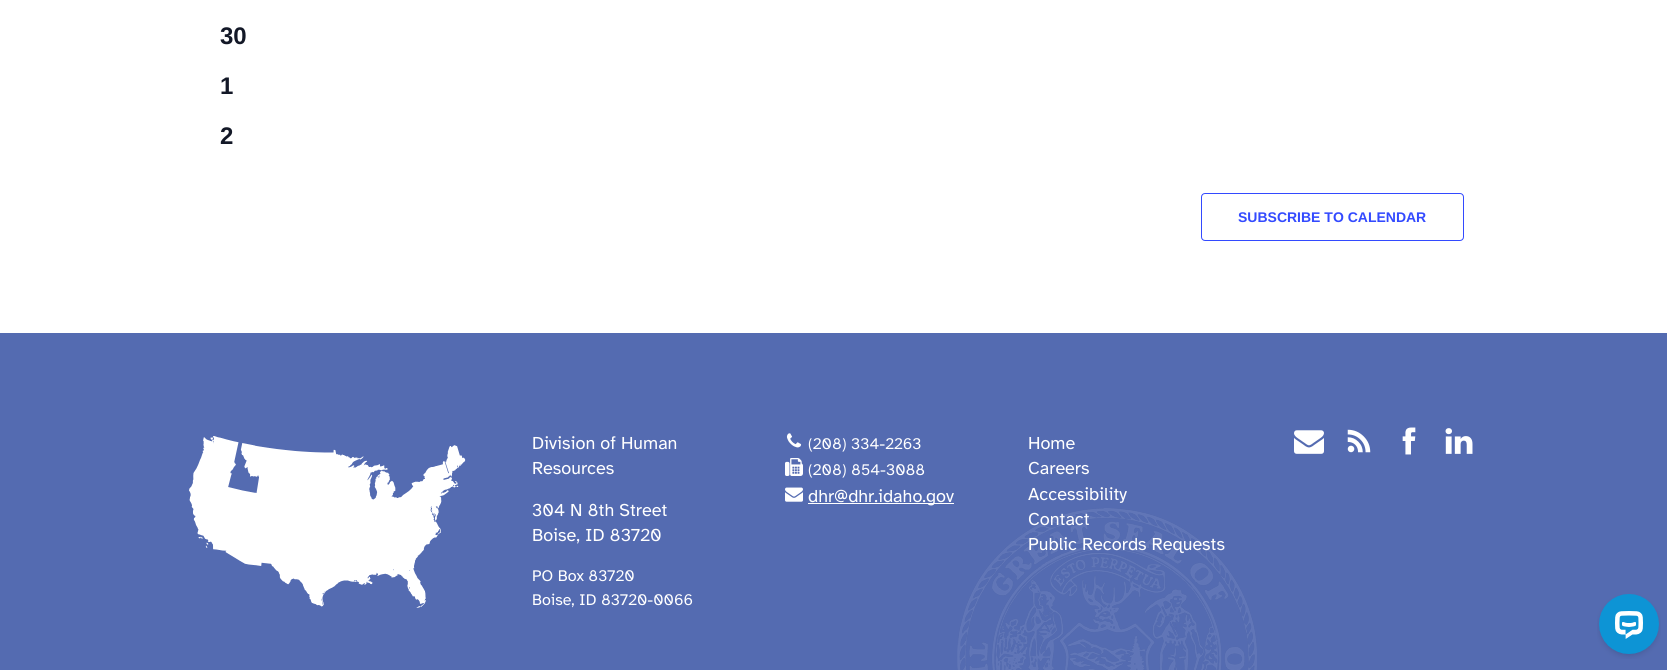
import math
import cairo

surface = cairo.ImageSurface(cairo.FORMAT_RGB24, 1667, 670)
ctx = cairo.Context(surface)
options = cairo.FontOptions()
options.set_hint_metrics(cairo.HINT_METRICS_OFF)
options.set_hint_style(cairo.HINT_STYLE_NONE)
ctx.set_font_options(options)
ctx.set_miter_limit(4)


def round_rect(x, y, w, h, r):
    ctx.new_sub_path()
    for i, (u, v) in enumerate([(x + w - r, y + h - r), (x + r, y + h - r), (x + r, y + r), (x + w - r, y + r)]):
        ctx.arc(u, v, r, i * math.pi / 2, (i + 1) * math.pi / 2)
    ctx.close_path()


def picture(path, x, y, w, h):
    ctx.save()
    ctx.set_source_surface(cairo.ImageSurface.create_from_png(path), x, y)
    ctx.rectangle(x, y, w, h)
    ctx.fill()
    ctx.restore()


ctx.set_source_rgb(1, 1, 1)
ctx.paint()
ctx.select_font_face("Liberation Sans", cairo.FONT_SLANT_NORMAL, cairo.FONT_WEIGHT_BOLD)
ctx.set_font_size(24)
ctx.set_source_rgb(0.078, 0.094, 0.153)
ctx.move_to(220, 44)
ctx.show_text("30")
ctx.move_to(220, 94)
ctx.show_text("1")
ctx.move_to(220, 144)
ctx.show_text("2")
round_rect(1201.5, 193.5, 262, 47, 3.5)
ctx.set_source_rgb(0.2, 0.29, 1)
ctx.set_line_width(1)
ctx.stroke()
ctx.set_font_size(14)
ctx.move_to(1238, 222)
ctx.show_text("SUBSCRIBE TO CALENDAR")
ctx.set_source_rgb(0.329, 0.42, 0.694)
ctx.rectangle(0, 333, 1667, 337)
ctx.fill()
picture("img1.png", 957, 508, 300, 162)
picture("img2.png", 189, 436, 277, 172)
ctx.select_font_face("Atkinson Hyperlegible")
ctx.set_font_size(18)
ctx.set_source_rgb(1, 1, 1)
ctx.move_to(532, 449)
ctx.show_text("Division of Human")
ctx.move_to(532, 474)
ctx.show_text("Resources")
ctx.move_to(532, 516)
ctx.show_text("304 N 8th Street")
ctx.move_to(532, 541)
ctx.show_text("Boise, ID 83720")
ctx.select_font_face("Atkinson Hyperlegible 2")
ctx.set_font_size(16)
ctx.move_to(532, 581)
ctx.show_text("PO Box 83720")
ctx.move_to(532, 605)
ctx.show_text("Boise, ID 83720-0066")
ctx.select_font_face("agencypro")
ctx.set_font_size(18)
ctx.move_to(785, 450)
ctx.show_text(";")
ctx.select_font_face("Atkinson Hyperlegible")
ctx.set_font_size(16)
ctx.move_to(808, 449)
ctx.show_text("(208) 334-2263")
ctx.select_font_face("agencypro")
ctx.set_font_size(18)
ctx.move_to(785, 476)
ctx.show_text("=")
ctx.select_font_face("Atkinson Hyperlegible")
ctx.set_font_size(16)
ctx.move_to(808, 475)
ctx.show_text("(208) 854-3088")
ctx.select_font_face("agencypro")
ctx.set_font_size(18)
ctx.move_to(785, 503)
ctx.show_text("\"")
ctx.rectangle(808, 503, 146, 1)
ctx.fill()
ctx.select_font_face("Atkinson Hyperlegible")
ctx.move_to(808, 502)
ctx.show_text("dhr@dhr.idaho.gov")
ctx.select_font_face("Atkinson Hyperlegible 2")
ctx.move_to(1028, 449)
ctx.show_text("Home")
ctx.move_to(1028, 474)
ctx.show_text("Careers")
ctx.move_to(1028, 500)
ctx.show_text("Accessibility")
ctx.move_to(1028, 525)
ctx.show_text("Contact")
ctx.move_to(1028, 550)
ctx.show_text("Public Records Requests")
ctx.select_font_face("agencypro")
ctx.set_font_size(30)
ctx.move_to(1294, 456)
ctx.show_text("\"")
picture("img3.png", 1347, 429, 24, 24)
picture("img4.png", 1402, 427, 14, 28)
picture("img5.png", 1445, 428, 28, 26)
picture("img6.png", 1597, 594, 64, 65)
surface.write_to_png("page.png")
